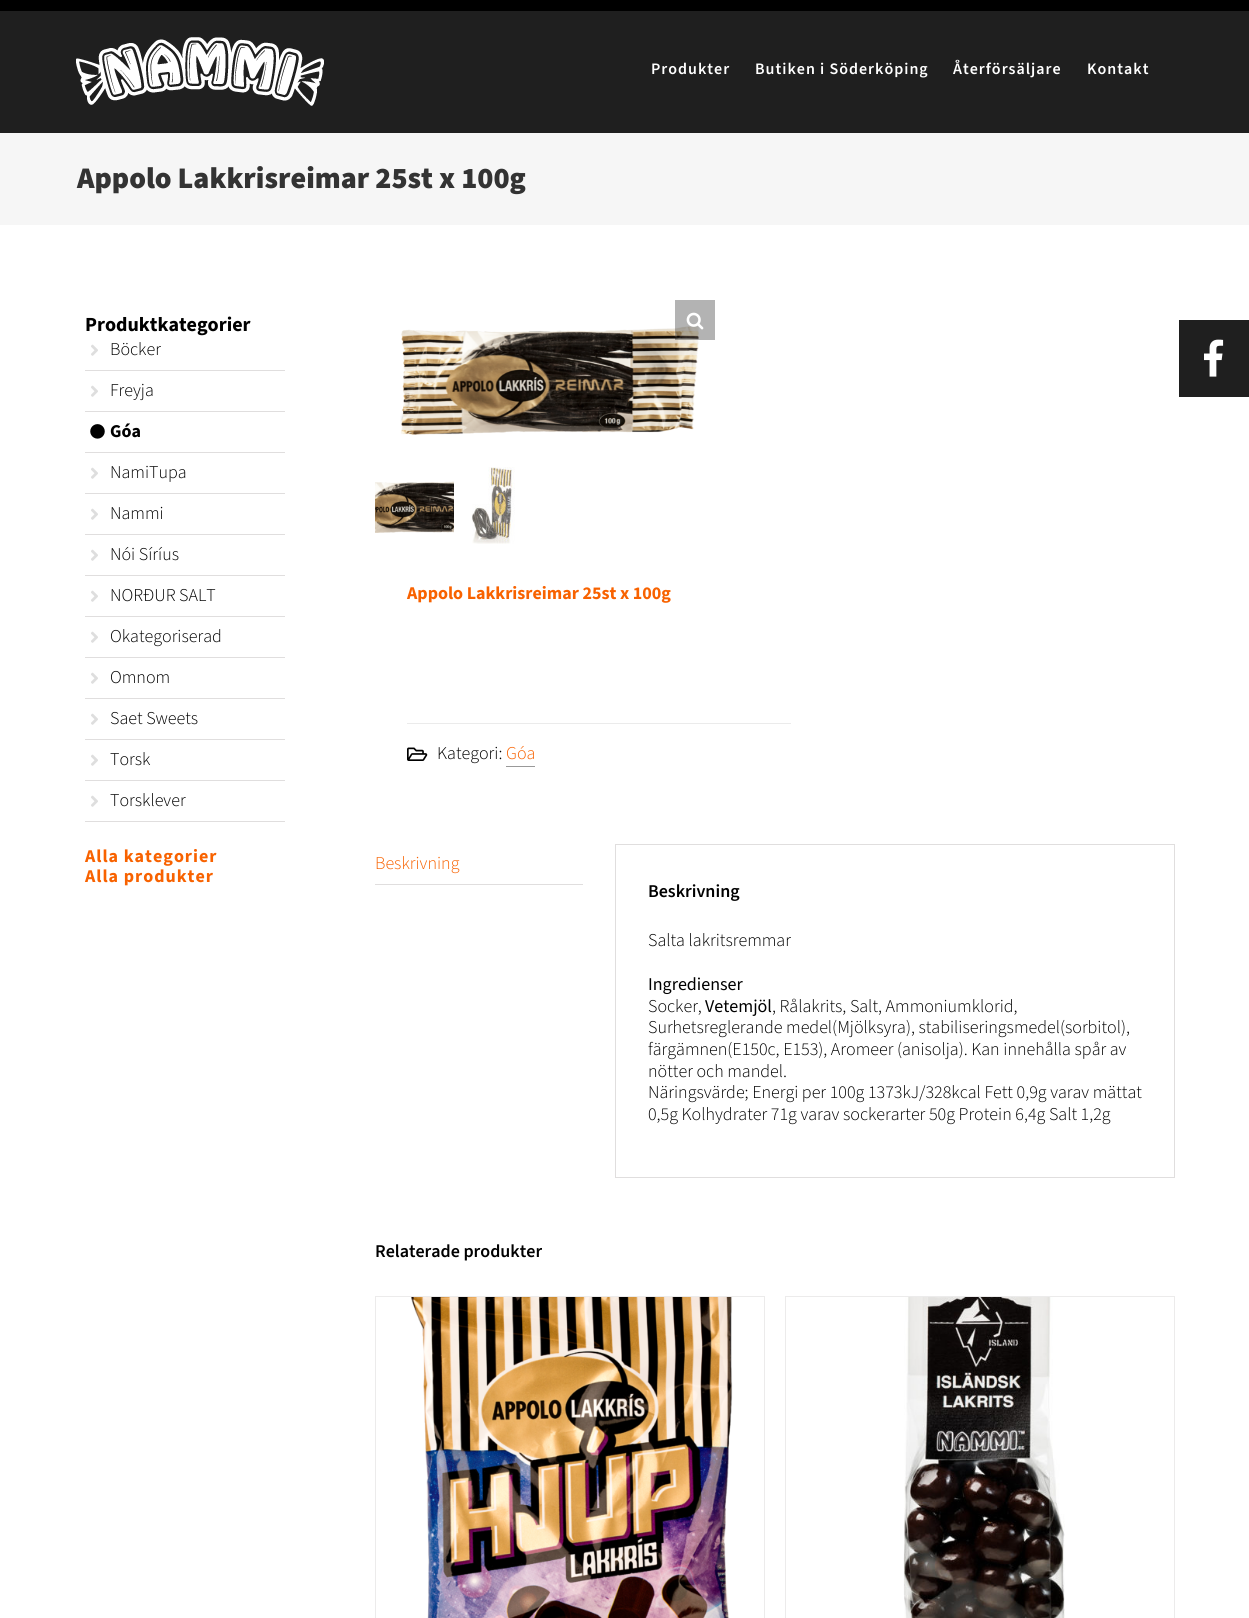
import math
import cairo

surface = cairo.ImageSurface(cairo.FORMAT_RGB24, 1249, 1618)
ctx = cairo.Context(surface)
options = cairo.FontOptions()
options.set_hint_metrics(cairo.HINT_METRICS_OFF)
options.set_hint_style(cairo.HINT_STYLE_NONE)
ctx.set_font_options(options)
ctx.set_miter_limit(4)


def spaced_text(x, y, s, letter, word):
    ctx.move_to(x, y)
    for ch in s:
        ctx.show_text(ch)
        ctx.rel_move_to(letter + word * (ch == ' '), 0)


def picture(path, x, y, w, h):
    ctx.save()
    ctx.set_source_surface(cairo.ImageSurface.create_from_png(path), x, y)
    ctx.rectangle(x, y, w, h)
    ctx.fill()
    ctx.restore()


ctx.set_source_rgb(1, 1, 1)
ctx.paint()
ctx.set_source_rgb(0, 0, 0)
ctx.rectangle(0, 0, 1249, 11)
ctx.fill()
ctx.set_source_rgb(0.122, 0.122, 0.122)
ctx.rectangle(0, 11, 1249, 122)
ctx.fill()
picture("img1.png", 76, 37, 248, 69)
ctx.select_font_face("Source Sans 3 SemiBold")
ctx.set_font_size(16)
ctx.set_source_rgb(1, 1, 1)
spaced_text(651, 74, "Produkter", 1, 0)
spaced_text(755, 74, "Butiken i Söderköping", 1, 0)
spaced_text(953, 74, "Återförsäljare", 1, 0)
spaced_text(1087, 74, "Kontakt", 1, 0)
ctx.set_source_rgb(0.961, 0.961, 0.961)
ctx.rectangle(0, 133, 1249, 92)
ctx.fill()
ctx.select_font_face("Source Sans 3 Black")
ctx.set_font_size(29.9)
ctx.set_source_rgb(0.2, 0.2, 0.2)
ctx.move_to(77, 188)
ctx.show_text("Appolo Lakkrisreimar 25st x 100g")
ctx.select_font_face("Source Sans 3", cairo.FONT_SLANT_NORMAL, cairo.FONT_WEIGHT_BOLD)
ctx.set_font_size(20)
ctx.set_source_rgb(0, 0, 0)
ctx.move_to(85, 331)
ctx.show_text("Produktkategorier")
ctx.set_source_rgb(0.878, 0.871, 0.871)
ctx.rectangle(85, 370, 200, 1)
ctx.fill()
picture("img2.png", 91, 344, 7, 12)
ctx.select_font_face("Source Sans 3 Light")
ctx.set_font_size(18)
ctx.set_source_rgb(0, 0, 0)
ctx.move_to(110, 355)
ctx.show_text("Böcker")
ctx.set_source_rgb(0.878, 0.871, 0.871)
ctx.rectangle(85, 411, 200, 1)
ctx.fill()
picture("img2.png", 91, 385, 7, 12)
ctx.set_source_rgb(0, 0, 0)
ctx.move_to(110, 396)
ctx.show_text("Freyja")
ctx.set_source_rgb(0.878, 0.871, 0.871)
ctx.rectangle(85, 452, 200, 1)
ctx.fill()
picture("img3.png", 90, 424, 15, 15)
ctx.select_font_face("Source Sans 3", cairo.FONT_SLANT_NORMAL, cairo.FONT_WEIGHT_BOLD)
ctx.set_source_rgb(0, 0, 0)
ctx.move_to(110, 437)
ctx.show_text("Góa")
ctx.set_source_rgb(0.878, 0.871, 0.871)
ctx.rectangle(85, 493, 200, 1)
ctx.fill()
picture("img2.png", 91, 467, 7, 12)
ctx.select_font_face("Source Sans 3 Light")
ctx.set_source_rgb(0, 0, 0)
ctx.move_to(110, 478)
ctx.show_text("NamiTupa")
ctx.set_source_rgb(0.878, 0.871, 0.871)
ctx.rectangle(85, 534, 200, 1)
ctx.fill()
picture("img2.png", 91, 508, 7, 12)
ctx.set_source_rgb(0, 0, 0)
ctx.move_to(110, 519)
ctx.show_text("Nammi")
ctx.set_source_rgb(0.878, 0.871, 0.871)
ctx.rectangle(85, 575, 200, 1)
ctx.fill()
picture("img2.png", 91, 549, 7, 12)
ctx.set_source_rgb(0, 0, 0)
ctx.move_to(110, 560)
ctx.show_text("Nói Síríus")
ctx.set_source_rgb(0.878, 0.871, 0.871)
ctx.rectangle(85, 616, 200, 1)
ctx.fill()
picture("img2.png", 91, 590, 7, 12)
ctx.set_source_rgb(0, 0, 0)
ctx.move_to(110, 601)
ctx.show_text("NORÐUR SALT")
ctx.set_source_rgb(0.878, 0.871, 0.871)
ctx.rectangle(85, 657, 200, 1)
ctx.fill()
picture("img2.png", 91, 631, 7, 12)
ctx.set_source_rgb(0, 0, 0)
ctx.move_to(110, 642)
ctx.show_text("Okategoriserad")
ctx.set_source_rgb(0.878, 0.871, 0.871)
ctx.rectangle(85, 698, 200, 1)
ctx.fill()
picture("img2.png", 91, 672, 7, 12)
ctx.set_source_rgb(0, 0, 0)
ctx.move_to(110, 683)
ctx.show_text("Omnom")
ctx.set_source_rgb(0.878, 0.871, 0.871)
ctx.rectangle(85, 739, 200, 1)
ctx.fill()
picture("img2.png", 91, 713, 7, 12)
ctx.set_source_rgb(0, 0, 0)
ctx.move_to(110, 724)
ctx.show_text("Saet Sweets")
ctx.set_source_rgb(0.878, 0.871, 0.871)
ctx.rectangle(85, 780, 200, 1)
ctx.fill()
picture("img2.png", 91, 754, 7, 12)
ctx.set_source_rgb(0, 0, 0)
ctx.move_to(110, 765)
ctx.show_text("Torsk")
ctx.set_source_rgb(0.878, 0.871, 0.871)
ctx.rectangle(85, 821, 200, 1)
ctx.fill()
picture("img2.png", 91, 795, 7, 12)
ctx.set_source_rgb(0, 0, 0)
ctx.move_to(110, 806)
ctx.show_text("Torsklever")
ctx.select_font_face("Source Sans 3", cairo.FONT_SLANT_NORMAL, cairo.FONT_WEIGHT_BOLD)
ctx.set_source_rgb(0.969, 0.384, 0)
spaced_text(85, 862, "Alla kategorier", 1, 0)
spaced_text(85, 882, "Alla produkter", 1, 0)
picture("img5.png", 400, 326, 299, 109)
ctx.set_source_rgba(0, 0, 0, 0.3)
ctx.rectangle(675, 300, 40, 40)
ctx.fill()
picture("img4.png", 686, 312, 18, 18)
picture("img6.png", 375, 481, 79, 52)
picture("img7.png", 471, 467, 44, 77)
ctx.set_source_rgb(0.969, 0.384, 0)
ctx.move_to(407, 599)
ctx.show_text("Appolo Lakkrisreimar 25st x 100g")
ctx.set_source_rgb(0.918, 0.918, 0.918)
ctx.rectangle(407, 723, 384, 1)
ctx.fill()
picture("img8.png", 407, 747, 21, 14)
ctx.select_font_face("Source Sans 3 Light")
ctx.set_source_rgb(0, 0, 0)
ctx.move_to(437, 759)
ctx.show_text("Kategori:")
ctx.set_source_rgb(0.969, 0.384, 0)
ctx.move_to(506, 759)
ctx.show_text("Góa")
ctx.set_source_rgb(0.6, 0.6, 0.6)
ctx.rectangle(506, 766, 29, 1)
ctx.fill()
ctx.set_source_rgb(0.878, 0.871, 0.871)
ctx.rectangle(375, 884, 208, 1)
ctx.fill()
ctx.set_source_rgb(0.969, 0.384, 0)
ctx.move_to(375, 869)
ctx.show_text("Beskrivning")
ctx.rectangle(615.5, 844.5, 559, 333)
ctx.set_source_rgb(0.878, 0.871, 0.871)
ctx.set_line_width(1)
ctx.stroke()
ctx.select_font_face("Source Sans 3 SemiBold")
ctx.set_source_rgb(0, 0, 0)
ctx.move_to(648, 897)
ctx.show_text("Beskrivning")
ctx.select_font_face("Source Sans 3 Light")
ctx.move_to(648, 946)
ctx.show_text("Salta lakritsremmar")
ctx.select_font_face("Source Sans 3")
ctx.move_to(648, 990)
ctx.show_text("Ingredienser")
ctx.select_font_face("Source Sans 3 Light")
ctx.move_to(648, 1012)
ctx.show_text("Socker,")
ctx.select_font_face("Source Sans 3")
ctx.move_to(705, 1012)
ctx.show_text("Vetemjöl")
ctx.select_font_face("Source Sans 3 Light")
ctx.move_to(772, 1012)
ctx.show_text(", Rålakrits, Salt, Ammoniumklorid,")
ctx.move_to(648, 1033)
ctx.show_text("Surhetsreglerande medel(Mjölksyra), stabiliseringsmedel(sorbitol),")
ctx.move_to(648, 1055)
ctx.show_text("färgämnen(E150c, E153), Aromeer (anisolja). Kan innehålla spår av")
ctx.move_to(648, 1077)
ctx.show_text("nötter och mandel.")
ctx.move_to(648, 1098)
ctx.show_text("Näringsvärde; Energi per 100g 1373kJ/328kcal Fett 0,9g varav mättat")
ctx.move_to(648, 1120)
ctx.show_text("0,5g Kolhydrater 71g varav sockerarter 50g Protein 6,4g Salt 1,2g")
ctx.select_font_face("Source Sans 3 SemiBold")
ctx.move_to(375, 1257)
ctx.show_text("Relaterade produkter")
ctx.set_source_rgb(0.922, 0.918, 0.918)
ctx.rectangle(375, 1296, 390, 1)
ctx.fill()
ctx.rectangle(764, 1296, 1, 322)
ctx.fill()
ctx.rectangle(375, 1296, 1, 322)
ctx.fill()
picture("img9.png", 411, 1297, 322, 321)
ctx.rectangle(785, 1296, 390, 1)
ctx.fill()
ctx.rectangle(1174, 1296, 1, 322)
ctx.fill()
ctx.rectangle(785, 1296, 1, 322)
ctx.fill()
picture("img10.png", 903, 1297, 162, 321)
ctx.set_source_rgb(0.122, 0.122, 0.122)
ctx.rectangle(1179, 320, 70, 77)
ctx.fill()
picture("img11.png", 1204, 339, 20, 38)
surface.write_to_png("page.png")
